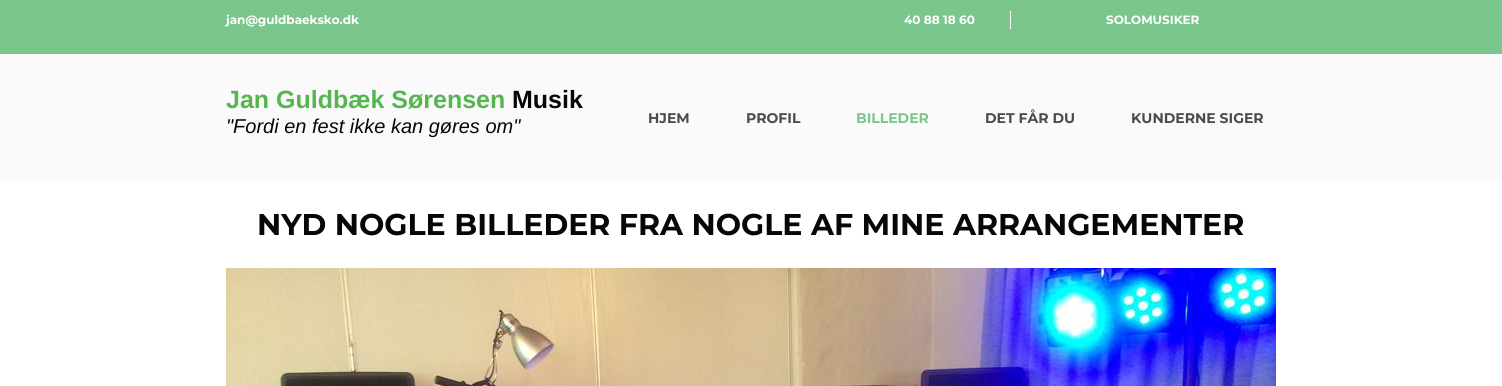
import math
import cairo

surface = cairo.ImageSurface(cairo.FORMAT_RGB24, 1502, 386)
ctx = cairo.Context(surface)
options = cairo.FontOptions()
options.set_hint_metrics(cairo.HINT_METRICS_OFF)
options.set_hint_style(cairo.HINT_STYLE_NONE)
ctx.set_font_options(options)
ctx.set_miter_limit(4)


def picture(path, x, y, w, h):
    ctx.save()
    ctx.set_source_surface(cairo.ImageSurface.create_from_png(path), x, y)
    ctx.rectangle(x, y, w, h)
    ctx.fill()
    ctx.restore()


ctx.set_source_rgb(1, 1, 1)
ctx.paint()
ctx.set_source_rgb(0.478, 0.776, 0.549)
ctx.rectangle(0, 0, 1502, 54)
ctx.fill()
ctx.select_font_face("Montserrat", cairo.FONT_SLANT_NORMAL, cairo.FONT_WEIGHT_BOLD)
ctx.set_font_size(12)
ctx.set_source_rgb(1, 1, 1)
ctx.move_to(226, 24)
ctx.show_text("jan@guldbaeksko.dk")
ctx.move_to(904, 24)
ctx.show_text("40 88 18 60")
ctx.rectangle(1010, 11, 1, 18)
ctx.fill()
ctx.move_to(1106, 24)
ctx.show_text("SOLOMUSIKER")
ctx.set_source_rgb(0.98, 0.98, 0.98)
ctx.rectangle(0, 54, 1502, 127)
ctx.fill()
ctx.select_font_face("Liberation Sans", cairo.FONT_SLANT_NORMAL, cairo.FONT_WEIGHT_BOLD)
ctx.set_font_size(25)
ctx.set_source_rgb(0.333, 0.714, 0.314)
ctx.move_to(226, 108)
ctx.show_text("Jan Guldbæk Sørensen")
ctx.set_source_rgb(0.031, 0.031, 0.031)
ctx.move_to(512, 108)
ctx.show_text("Musik")
ctx.select_font_face("Liberation Sans", cairo.FONT_SLANT_ITALIC)
ctx.set_font_size(20)
ctx.move_to(226, 133)
ctx.show_text("\"Fordi en fest ikke kan gøres om\"")
ctx.select_font_face("Montserrat", cairo.FONT_SLANT_NORMAL, cairo.FONT_WEIGHT_BOLD)
ctx.set_font_size(14)
ctx.set_source_rgb(0.294, 0.294, 0.294)
ctx.move_to(648, 123)
ctx.show_text("HJEM")
ctx.move_to(746, 123)
ctx.show_text("PROFIL")
ctx.set_source_rgb(0.478, 0.776, 0.549)
ctx.move_to(856, 123)
ctx.show_text("BILLEDER")
ctx.set_source_rgb(0.294, 0.294, 0.294)
ctx.move_to(985, 123)
ctx.show_text("DET FÅR DU")
ctx.move_to(1131, 123)
ctx.show_text("KUNDERNE SIGER")
ctx.set_font_size(30)
ctx.set_source_rgb(0.031, 0.031, 0.031)
ctx.move_to(257, 235)
ctx.show_text("NYD NOGLE BILLEDER FRA NOGLE AF MINE ARRANGEMENTER")
picture("img1.png", 226, 268, 1050, 118)
surface.write_to_png("page.png")
